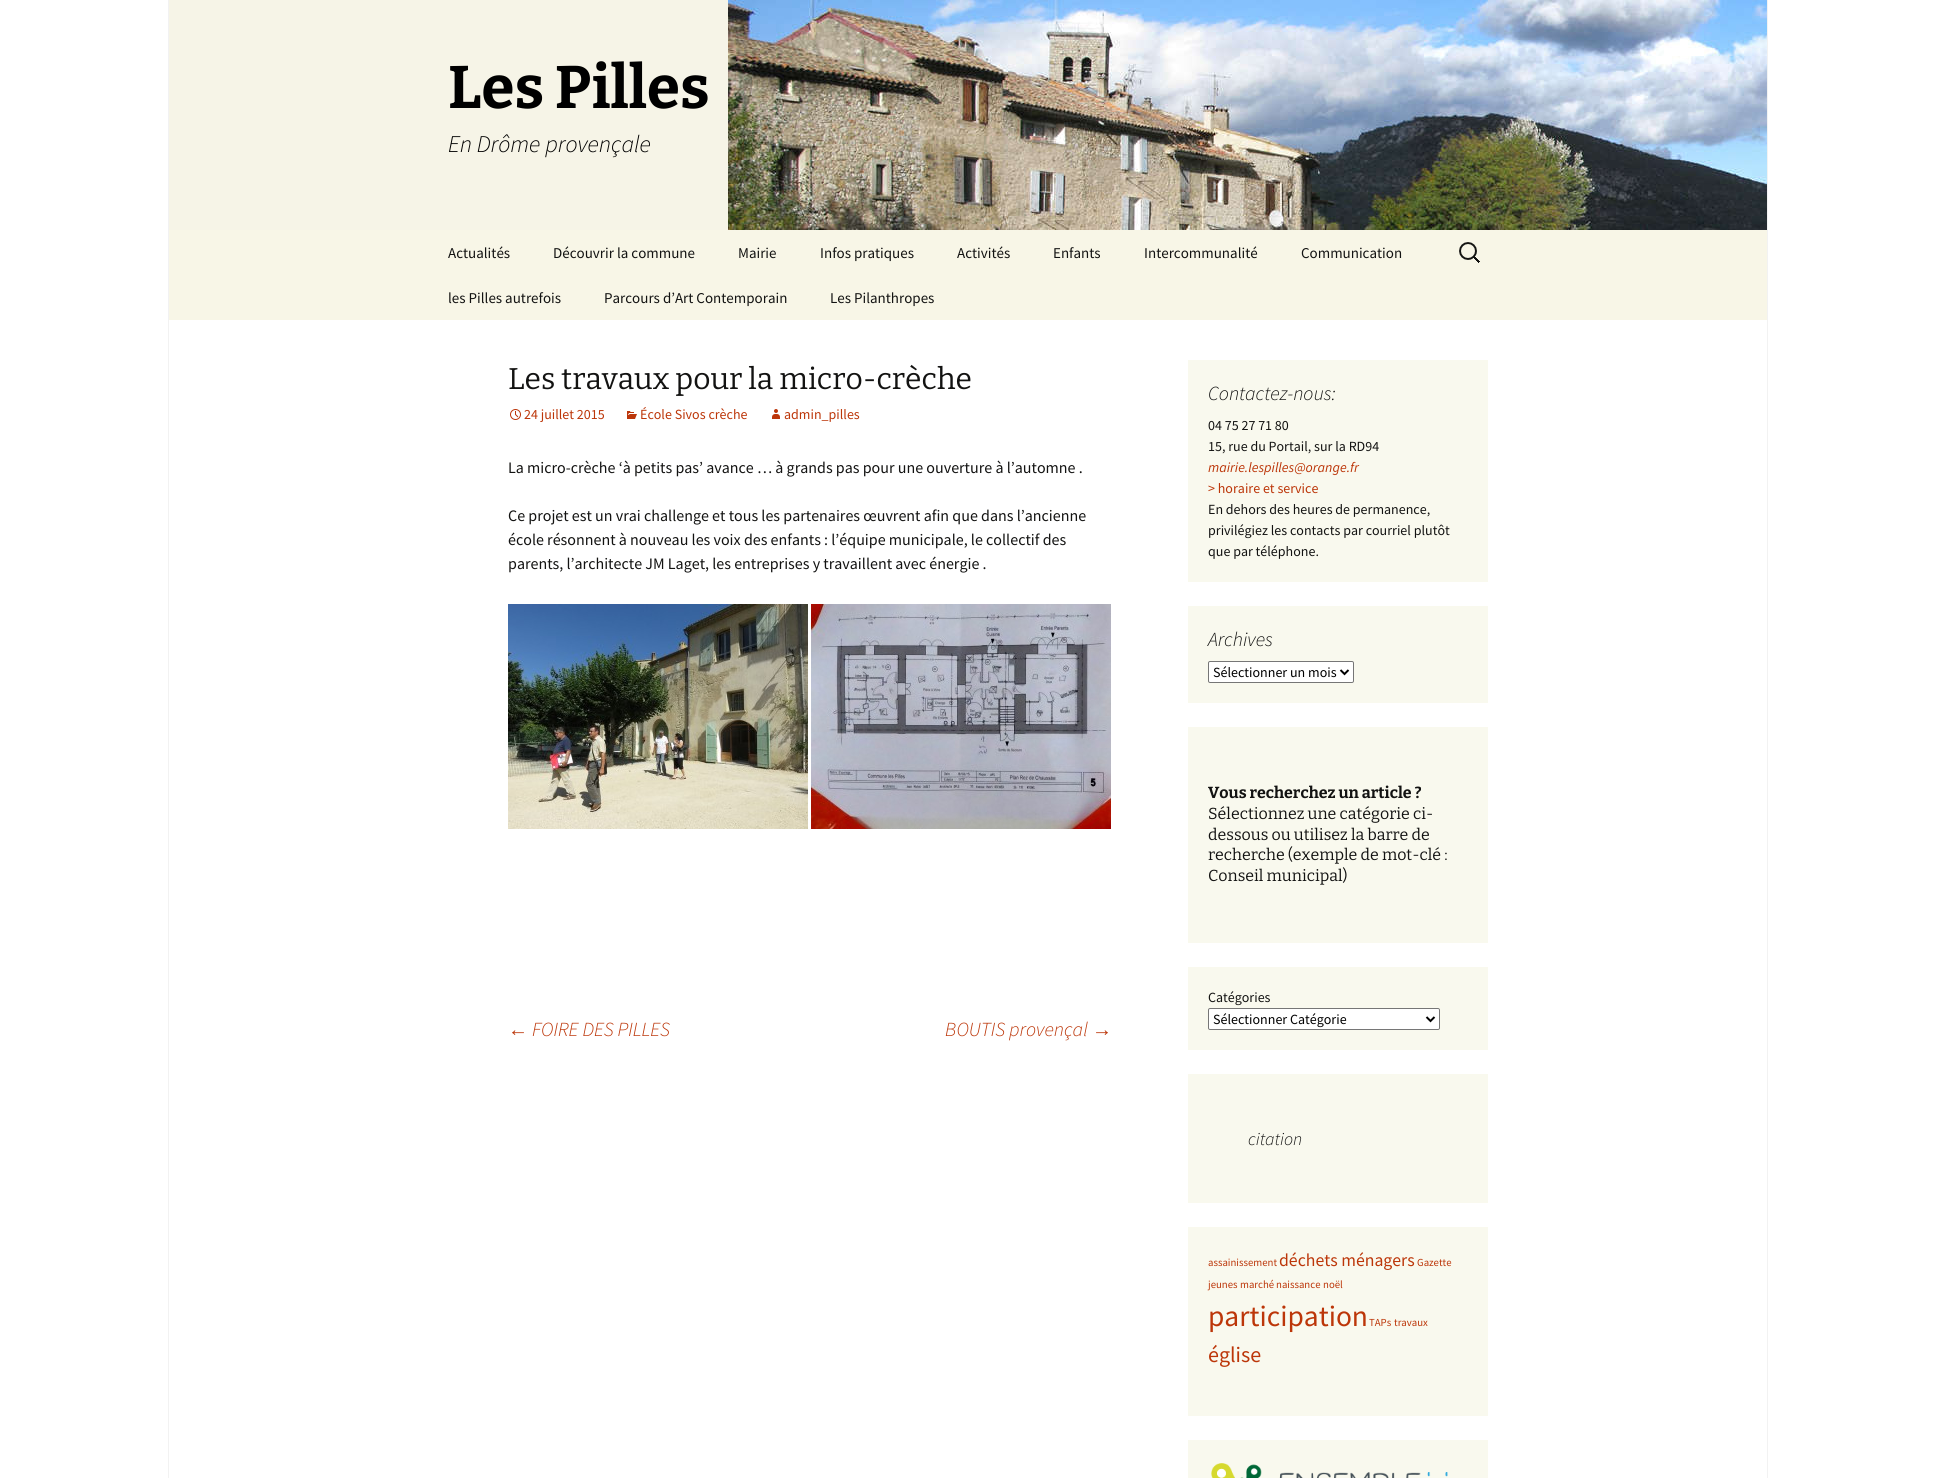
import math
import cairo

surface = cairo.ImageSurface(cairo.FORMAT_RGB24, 1935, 1478)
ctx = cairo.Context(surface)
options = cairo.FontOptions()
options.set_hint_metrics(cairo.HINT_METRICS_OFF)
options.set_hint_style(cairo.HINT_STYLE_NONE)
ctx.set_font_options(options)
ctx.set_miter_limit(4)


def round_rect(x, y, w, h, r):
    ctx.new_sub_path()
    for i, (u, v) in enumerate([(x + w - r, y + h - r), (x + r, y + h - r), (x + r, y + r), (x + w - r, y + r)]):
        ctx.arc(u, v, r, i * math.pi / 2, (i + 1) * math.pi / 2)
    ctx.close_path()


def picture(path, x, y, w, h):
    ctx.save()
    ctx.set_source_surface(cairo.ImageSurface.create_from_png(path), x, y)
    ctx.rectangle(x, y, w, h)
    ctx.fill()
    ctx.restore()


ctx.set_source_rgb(1, 1, 1)
ctx.paint()
ctx.set_source_rgb(0.949, 0.949, 0.949)
ctx.rectangle(1767, 0, 1, 1478)
ctx.fill()
ctx.rectangle(168, 0, 1, 1478)
ctx.fill()
picture("img1.png", 169, 0, 1598, 230)
ctx.select_font_face("Bitter Thin")
ctx.set_font_size(60)
ctx.set_source_rgb(0, 0, 0)
ctx.move_to(448, 108)
ctx.show_text("Les Pilles")
ctx.select_font_face("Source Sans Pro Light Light", cairo.FONT_SLANT_ITALIC)
ctx.set_font_size(24)
ctx.move_to(448, 152)
ctx.show_text("En Drôme provençale")
ctx.set_source_rgb(0.969, 0.961, 0.906)
ctx.rectangle(169, 230, 1598, 90)
ctx.fill()
ctx.select_font_face("Source Sans Pro")
ctx.set_font_size(15)
ctx.set_source_rgb(0.078, 0.078, 0.071)
ctx.move_to(448, 258)
ctx.show_text("Actualités")
ctx.move_to(553, 258)
ctx.show_text("Découvrir la commune")
ctx.move_to(738, 258)
ctx.show_text("Mairie")
ctx.move_to(820, 258)
ctx.show_text("Infos pratiques")
ctx.move_to(957, 258)
ctx.show_text("Activités")
ctx.move_to(1053, 258)
ctx.show_text("Enfants")
ctx.move_to(1144, 258)
ctx.show_text("Intercommunalité")
ctx.move_to(1301, 258)
ctx.show_text("Communication")
ctx.move_to(448, 303)
ctx.show_text("les Pilles autrefois")
ctx.move_to(604, 303)
ctx.show_text("Parcours d’Art Contemporain")
ctx.move_to(830, 303)
ctx.show_text("Les Pilanthropes")
picture("img2.png", 1459, 242, 21, 21)
ctx.select_font_face("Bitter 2 Thin")
ctx.set_font_size(30)
ctx.move_to(508, 389)
ctx.show_text("Les travaux pour la micro-crèche")
picture("img3.png", 510, 409, 11, 11)
ctx.select_font_face("Source Sans Pro")
ctx.set_font_size(14)
ctx.set_source_rgb(0.737, 0.212, 0.039)
ctx.move_to(524, 419)
ctx.show_text("24 juillet 2015")
picture("img4.png", 627, 411, 10, 8)
ctx.move_to(640, 419)
ctx.show_text("École Sivos crèche")
picture("img5.png", 772, 409, 8, 10)
ctx.move_to(784, 419)
ctx.show_text("admin_pilles")
ctx.set_font_size(16)
ctx.set_source_rgb(0.078, 0.078, 0.071)
ctx.move_to(508, 473)
ctx.show_text("La micro-crèche ‘à petits pas’ avance … à grands pas pour une ouverture à l’automne .")
ctx.move_to(508, 521)
ctx.show_text("Ce projet est un vrai challenge et tous les partenaires œuvrent afin que dans l’ancienne")
ctx.move_to(508, 545)
ctx.show_text("école résonnent à nouveau les voix des enfants : l’équipe municipale, le collectif des")
ctx.move_to(508, 569)
ctx.show_text("parents, l’architecte JM Laget, les entreprises y travaillent avec énergie .")
picture("img6.png", 508, 604, 300, 225)
picture("img7.png", 811, 604, 300, 225)
ctx.select_font_face("Liberation Sans", cairo.FONT_SLANT_ITALIC)
ctx.set_font_size(20)
ctx.set_source_rgb(0.737, 0.212, 0.039)
ctx.move_to(508, 1036)
ctx.show_text("←")
ctx.select_font_face("Source Sans Pro Light Light", cairo.FONT_SLANT_ITALIC)
ctx.move_to(532, 1036)
ctx.show_text("FOIRE DES PILLES")
ctx.move_to(945, 1036)
ctx.show_text("BOUTIS provençal")
ctx.select_font_face("Liberation Sans", cairo.FONT_SLANT_ITALIC)
ctx.move_to(1092, 1036)
ctx.show_text("→")
ctx.set_source_rgb(0.976, 0.973, 0.933)
ctx.rectangle(1188, 360, 300, 222)
ctx.fill()
ctx.select_font_face("Source Sans Pro Light Light", cairo.FONT_SLANT_ITALIC)
ctx.set_source_rgb(0.078, 0.078, 0.071)
ctx.move_to(1208, 400)
ctx.show_text("Contactez-nous:")
ctx.select_font_face("Source Sans Pro")
ctx.set_font_size(14)
ctx.move_to(1208, 430)
ctx.show_text("04 75 27 71 80")
ctx.move_to(1208, 451)
ctx.show_text("15, rue du Portail, sur la RD94")
ctx.select_font_face("Source Sans Pro", cairo.FONT_SLANT_ITALIC)
ctx.set_source_rgb(0.737, 0.212, 0.039)
ctx.move_to(1208, 472)
ctx.show_text("mairie.lespilles@orange.fr")
ctx.select_font_face("Source Sans Pro")
ctx.move_to(1208, 493)
ctx.show_text("> horaire et service")
ctx.set_source_rgb(0.078, 0.078, 0.071)
ctx.move_to(1208, 514)
ctx.show_text("En dehors des heures de permanence,")
ctx.move_to(1208, 535)
ctx.show_text("privilégiez les contacts par courriel plutôt")
ctx.move_to(1208, 556)
ctx.show_text("que par téléphone.")
ctx.set_source_rgb(0.976, 0.973, 0.933)
ctx.rectangle(1188, 606, 300, 97)
ctx.fill()
ctx.select_font_face("Source Sans Pro Light Light", cairo.FONT_SLANT_ITALIC)
ctx.set_font_size(20)
ctx.set_source_rgb(0.078, 0.078, 0.071)
ctx.move_to(1208, 646)
ctx.show_text("Archives")
ctx.set_source_rgb(1, 1, 1)
round_rect(1208.5, 661.5, 145, 21, 1.5)
ctx.fill_preserve()
ctx.set_source_rgb(0.463, 0.463, 0.463)
ctx.set_line_width(1)
ctx.stroke()
ctx.new_path()
ctx.move_to(1340.5, 670)
ctx.line_to(1344.5, 674)
ctx.line_to(1348.5, 670)
ctx.set_source_rgb(0, 0, 0)
ctx.set_line_width(2)
ctx.stroke()
ctx.select_font_face("Source Sans Pro")
ctx.set_font_size(14)
ctx.move_to(1213, 677)
ctx.show_text("Sélectionner un mois")
ctx.set_source_rgb(0.976, 0.973, 0.933)
ctx.rectangle(1188, 727, 300, 216)
ctx.fill()
ctx.select_font_face("Bitter Thin")
ctx.set_font_size(16)
ctx.set_source_rgb(0.078, 0.078, 0.071)
ctx.move_to(1208, 798)
ctx.show_text("Vous recherchez un article ?")
ctx.select_font_face("Bitter 2 Thin")
ctx.move_to(1208, 819)
ctx.show_text("Sélectionnez une catégorie ci-")
ctx.move_to(1208, 840)
ctx.show_text("dessous ou utilisez la barre de")
ctx.move_to(1208, 860)
ctx.show_text("recherche (exemple de mot-clé :")
ctx.move_to(1208, 881)
ctx.show_text("Conseil municipal)")
ctx.set_source_rgb(0.976, 0.973, 0.933)
ctx.rectangle(1188, 967, 300, 83)
ctx.fill()
ctx.select_font_face("Source Sans Pro")
ctx.set_font_size(14)
ctx.set_source_rgb(0.078, 0.078, 0.071)
ctx.move_to(1208, 1002)
ctx.show_text("Catégories")
ctx.set_source_rgb(1, 1, 1)
round_rect(1208.5, 1008.5, 231, 21, 1.5)
ctx.fill_preserve()
ctx.set_source_rgb(0.463, 0.463, 0.463)
ctx.set_line_width(1)
ctx.stroke()
ctx.new_path()
ctx.move_to(1426.5, 1017)
ctx.line_to(1430.5, 1021)
ctx.line_to(1434.5, 1017)
ctx.set_source_rgb(0, 0, 0)
ctx.set_line_width(2)
ctx.stroke()
ctx.move_to(1213, 1024)
ctx.show_text("Sélectionner Catégorie")
ctx.set_source_rgb(0.976, 0.973, 0.933)
ctx.rectangle(1188, 1074, 300, 129)
ctx.fill()
ctx.select_font_face("Source Sans Pro Light Light", cairo.FONT_SLANT_ITALIC)
ctx.set_font_size(18)
ctx.set_source_rgb(0.078, 0.078, 0.071)
ctx.move_to(1248, 1145)
ctx.show_text("citation")
ctx.set_source_rgb(0.976, 0.973, 0.933)
ctx.rectangle(1188, 1227, 300, 189)
ctx.fill()
ctx.select_font_face("Source Sans Pro")
ctx.set_font_size(10.75)
ctx.set_source_rgb(0.737, 0.212, 0.039)
ctx.move_to(1208, 1266)
ctx.show_text("assainissement")
ctx.set_font_size(17.75)
ctx.move_to(1279, 1266)
ctx.show_text("déchets ménagers")
ctx.set_font_size(10.75)
ctx.move_to(1417, 1266)
ctx.show_text("Gazette")
ctx.move_to(1208, 1288)
ctx.show_text("jeunes")
ctx.move_to(1240, 1288)
ctx.show_text("marché")
ctx.move_to(1276, 1288)
ctx.show_text("naissance")
ctx.move_to(1323, 1288)
ctx.show_text("noël")
ctx.set_font_size(29.5)
ctx.move_to(1208, 1326)
ctx.show_text("participation")
ctx.set_font_size(10.75)
ctx.move_to(1369, 1326)
ctx.show_text("TAPs")
ctx.move_to(1394, 1326)
ctx.show_text("travaux")
ctx.set_font_size(22)
ctx.move_to(1208, 1362)
ctx.show_text("église")
ctx.set_source_rgb(0.976, 0.973, 0.933)
ctx.rectangle(1188, 1440, 300, 38)
ctx.fill()
picture("img8.png", 1211, 1463, 237, 15)
surface.write_to_png("page.png")
